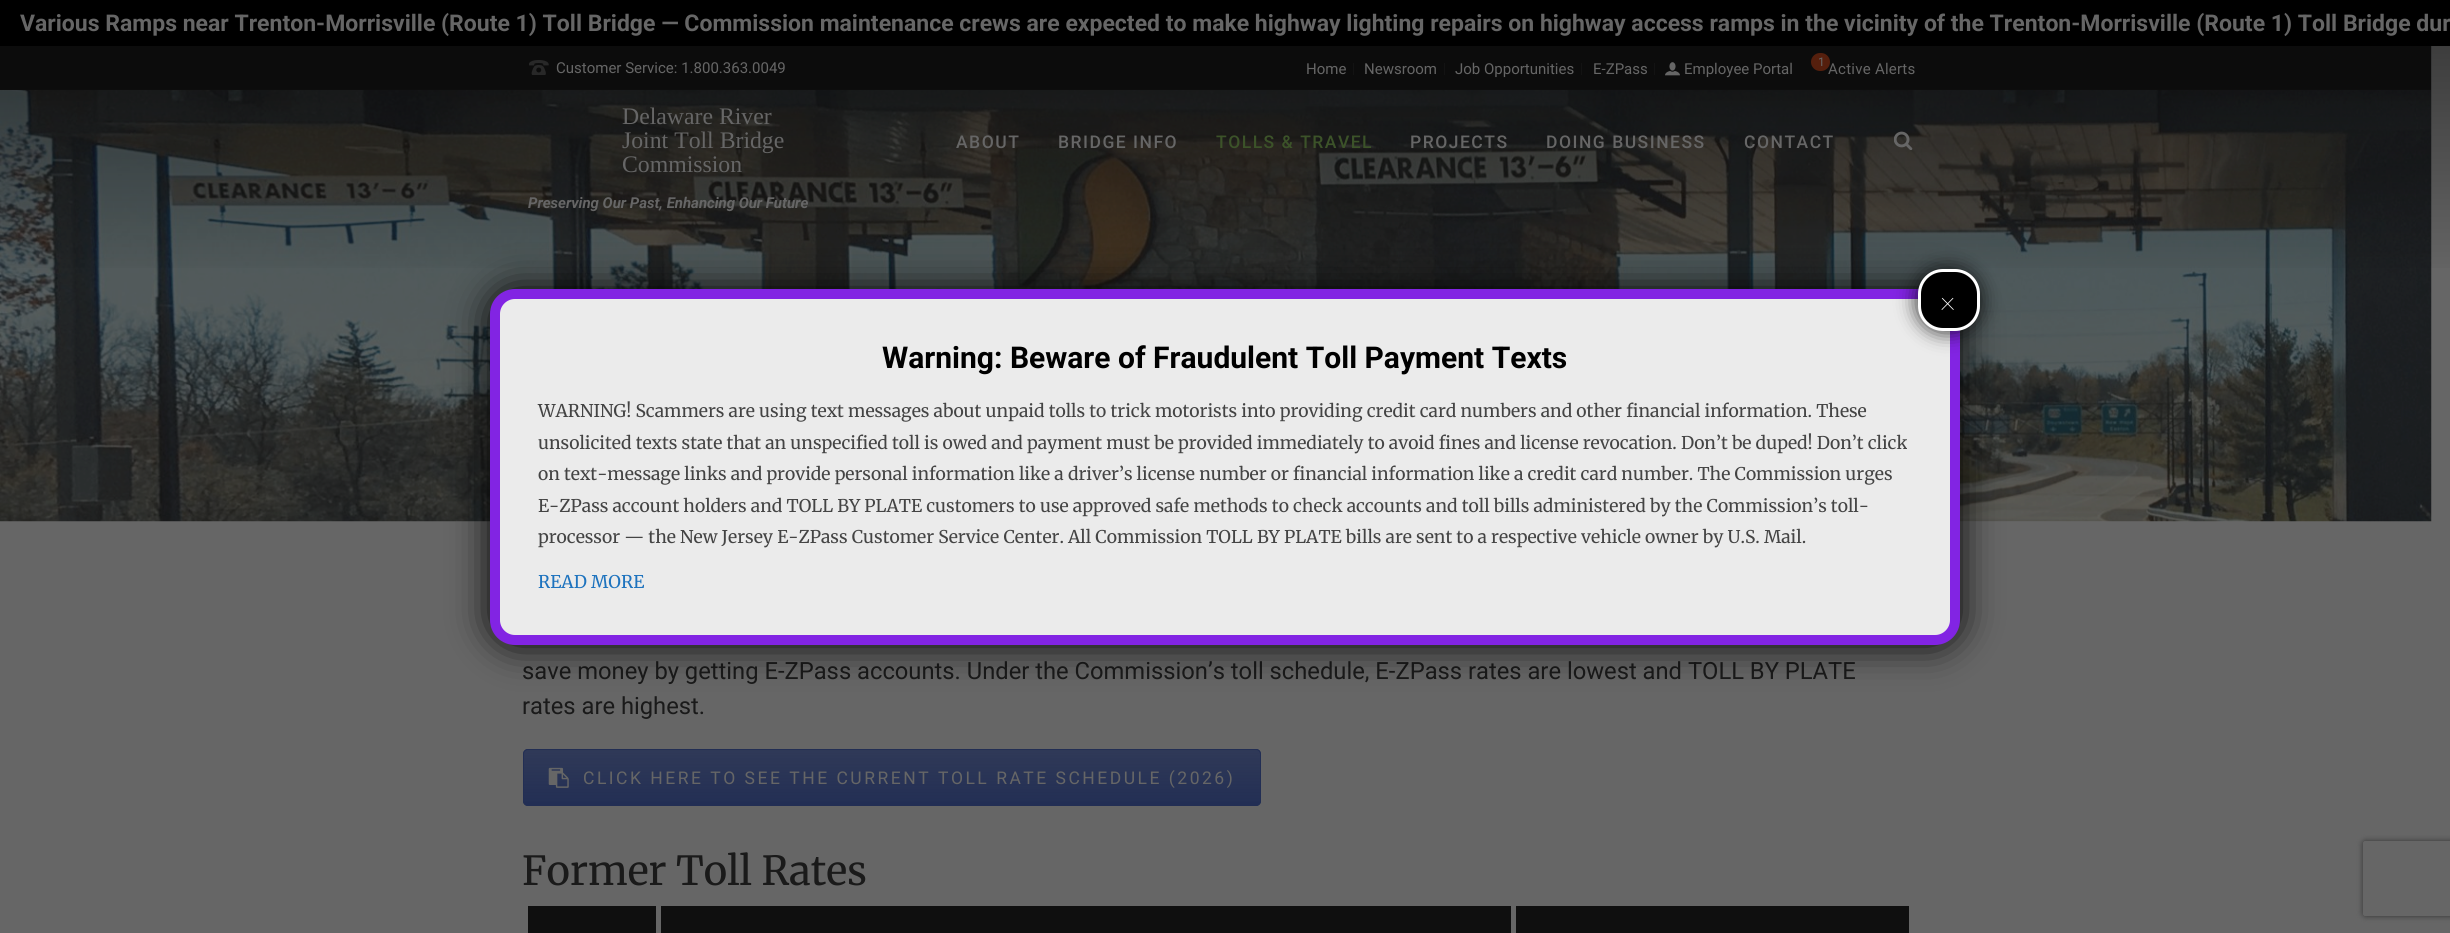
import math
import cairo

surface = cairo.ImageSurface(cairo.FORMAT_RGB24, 2450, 933)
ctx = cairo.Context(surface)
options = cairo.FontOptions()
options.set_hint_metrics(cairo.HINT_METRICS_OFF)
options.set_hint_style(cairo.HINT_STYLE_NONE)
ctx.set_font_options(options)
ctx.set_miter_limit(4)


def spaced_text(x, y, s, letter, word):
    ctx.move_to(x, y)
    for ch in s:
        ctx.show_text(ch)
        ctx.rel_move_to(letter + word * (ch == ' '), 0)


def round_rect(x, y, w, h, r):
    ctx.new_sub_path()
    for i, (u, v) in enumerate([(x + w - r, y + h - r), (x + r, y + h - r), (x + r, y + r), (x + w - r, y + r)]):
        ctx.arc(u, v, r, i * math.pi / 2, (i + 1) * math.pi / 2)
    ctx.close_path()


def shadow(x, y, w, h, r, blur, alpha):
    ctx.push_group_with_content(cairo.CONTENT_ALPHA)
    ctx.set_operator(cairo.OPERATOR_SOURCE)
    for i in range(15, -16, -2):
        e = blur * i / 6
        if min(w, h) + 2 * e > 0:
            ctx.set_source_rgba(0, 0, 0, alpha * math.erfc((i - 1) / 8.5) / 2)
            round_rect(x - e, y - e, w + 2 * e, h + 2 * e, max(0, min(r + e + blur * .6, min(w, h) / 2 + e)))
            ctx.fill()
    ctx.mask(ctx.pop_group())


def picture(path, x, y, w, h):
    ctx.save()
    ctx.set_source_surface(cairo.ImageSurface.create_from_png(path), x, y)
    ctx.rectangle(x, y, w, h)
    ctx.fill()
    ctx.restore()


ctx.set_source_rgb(0.4, 0.4, 0.4)
ctx.paint()
ctx.set_source_rgb(0, 0, 0)
ctx.rectangle(0, 0, 2450, 46)
ctx.fill()
ctx.select_font_face("Roboto", cairo.FONT_SLANT_NORMAL, cairo.FONT_WEIGHT_BOLD)
ctx.set_font_size(23)
ctx.set_source_rgb(0.4, 0.4, 0.4)
ctx.move_to(20, 31)
ctx.show_text("Various Ramps near Trenton-Morrisville (Route 1) Toll Bridge — Commission maintenance crews are expected to make highway lighting repairs on highway access ramps in the vicinity of the Trenton-Morrisville (Route 1) Toll Bridge dur")
picture("img1.png", 0, 46, 2432, 476)
gradient = cairo.LinearGradient(1216, 46, 1216, 521)
gradient.add_color_stop_rgba(0, 0, 0, 0, 0.4)
gradient.add_color_stop_rgba(0.5, 0, 0, 0, 0)
ctx.set_source(gradient)
ctx.rectangle(0, 46, 2450, 222)
ctx.fill()
ctx.set_source_rgb(0.047, 0.047, 0.047)
ctx.rectangle(0, 46, 2431, 43)
ctx.fill()
ctx.set_source_rgb(0.051, 0.051, 0.051)
ctx.rectangle(0, 89, 2431, 1)
ctx.fill()
picture("img2.png", 529, 60, 20, 15)
ctx.select_font_face("Roboto")
ctx.set_font_size(15)
ctx.set_source_rgb(0.4, 0.4, 0.4)
ctx.move_to(556, 73)
ctx.show_text("Customer Service: 1.800.363.0049")
ctx.set_source_rgb(0.078, 0.078, 0.078)
ctx.rectangle(1353, 63, 1, 12)
ctx.fill()
ctx.set_source_rgb(0.4, 0.4, 0.4)
ctx.move_to(1306, 74)
ctx.show_text("Home")
ctx.set_source_rgb(0.078, 0.078, 0.078)
ctx.rectangle(1444, 63, 1, 12)
ctx.fill()
ctx.set_source_rgb(0.4, 0.4, 0.4)
ctx.move_to(1364, 74)
ctx.show_text("Newsroom")
ctx.set_source_rgb(0.078, 0.078, 0.078)
ctx.rectangle(1581, 63, 1, 12)
ctx.fill()
ctx.set_source_rgb(0.4, 0.4, 0.4)
ctx.move_to(1455, 74)
ctx.show_text("Job Opportunities")
ctx.set_source_rgb(0.078, 0.078, 0.078)
ctx.rectangle(1654, 63, 1, 12)
ctx.fill()
ctx.set_source_rgb(0.4, 0.4, 0.4)
ctx.move_to(1593, 74)
ctx.show_text("E-ZPass")
picture("img3.png", 1665, 62, 15, 14)
ctx.move_to(1684, 74)
ctx.show_text("Employee Portal")
ctx.set_source_rgb(0.333, 0.122, 0.051)
round_rect(1811, 53, 19, 18, 9)
ctx.fill()
ctx.set_font_size(12)
ctx.set_source_rgb(0.4, 0.4, 0.4)
ctx.move_to(1818, 66)
ctx.show_text("1")
ctx.set_font_size(15)
spaced_text(1828, 74, "Active Alerts", 0.25, 0)
ctx.select_font_face("Liberation Serif")
ctx.set_font_size(23.75)
ctx.move_to(622, 124)
ctx.show_text("Delaware River")
ctx.move_to(622, 148)
ctx.show_text("Joint Toll Bridge")
ctx.move_to(622, 172)
ctx.show_text("Commission")
ctx.select_font_face("Roboto", cairo.FONT_SLANT_ITALIC, cairo.FONT_WEIGHT_BOLD)
ctx.set_font_size(15)
ctx.move_to(528, 208)
ctx.show_text("Preserving Our Past, Enhancing Our Future")
ctx.select_font_face("Roboto Medium")
ctx.set_font_size(17.5)
spaced_text(956, 148, "ABOUT", 1.5, 0)
spaced_text(1058, 148, "BRIDGE INFO", 1.5, 0)
ctx.set_source_rgb(0.235, 0.325, 0.161)
spaced_text(1216, 148, "TOLLS & TRAVEL", 1.5, 0)
ctx.set_source_rgb(0.4, 0.4, 0.4)
spaced_text(1410, 148, "PROJECTS", 1.5, 0)
spaced_text(1546, 148, "DOING BUSINESS", 1.5, 0)
spaced_text(1744, 148, "CONTACT", 1.5, 0)
picture("img4.png", 1894, 131, 19, 19)
ctx.select_font_face("Roboto")
ctx.set_font_size(23.75)
ctx.set_source_rgb(0.102, 0.102, 0.102)
ctx.move_to(522, 679)
ctx.show_text("save money by getting E-ZPass accounts. Under the Commission’s toll schedule, E-ZPass rates are lowest and TOLL BY PLATE")
ctx.move_to(522, 714)
ctx.show_text("rates are highest.")
ctx.set_source_rgb(0.133, 0.18, 0.329)
round_rect(523, 749, 738, 57, 5)
ctx.fill()
ctx.save()
round_rect(523, 749, 738, 57, 5)
ctx.clip()
gradient = cairo.LinearGradient(892, 750, 892, 805)
gradient.add_color_stop_rgba(0, 0.4, 0.4, 0.4, 0.2)
gradient.add_color_stop_rgba(1, 0.4, 0.4, 0.4, 0.01)
ctx.set_source(gradient)
ctx.rectangle(523, 750, 738, 52)
ctx.fill()
ctx.restore()
round_rect(523.5, 749.5, 737, 56, 4.5)
ctx.set_line_width(1)
ctx.stroke()
picture("img5.png", 548, 767, 21, 21)
ctx.set_font_size(17.5)
ctx.set_source_rgb(0.4, 0.4, 0.4)
spaced_text(583, 784, "CLICK HERE TO SEE THE CURRENT TOLL RATE SCHEDULE (2026)", 2.5, 0)
ctx.select_font_face("Merriweather")
ctx.set_font_size(40)
ctx.set_source_rgb(0.102, 0.102, 0.102)
ctx.move_to(522, 885)
ctx.show_text("Former Toll Rates")
ctx.set_source_rgb(0.059, 0.059, 0.059)
ctx.rectangle(528, 906, 1381, 27)
ctx.fill()
ctx.set_source_rgb(0.4, 0.4, 0.4)
ctx.rectangle(656, 906, 5, 27)
ctx.fill()
ctx.rectangle(1511, 906, 5, 27)
ctx.fill()
ctx.set_source_rgb(0.008, 0.008, 0.008)
shadow(490, 289, 1470, 356, 25, 19, 1)
ctx.set_source_rgb(0.918, 0.918, 0.918)
round_rect(495, 294, 1460, 346, 20)
ctx.fill_preserve()
ctx.set_source_rgb(0.51, 0.141, 0.89)
ctx.set_line_width(10)
ctx.stroke()
ctx.set_source_rgb(0.008, 0.008, 0.008)
shadow(1916, 268, 65, 65, 26, 9.5, 0.75)
ctx.set_source_rgb(0, 0, 0)
round_rect(1919.5, 270.5, 59, 59, 23.5)
ctx.fill_preserve()
ctx.set_source_rgb(1, 1, 1)
ctx.set_line_width(3)
ctx.stroke()
ctx.select_font_face("Roboto Thin")
ctx.set_font_size(30)
spaced_text(1940, 310, "×", 2.5, 0)
ctx.select_font_face("Roboto", cairo.FONT_SLANT_NORMAL, cairo.FONT_WEIGHT_BOLD)
ctx.set_source_rgb(0, 0, 0)
ctx.move_to(882, 368)
ctx.show_text("Warning: Beware of Fraudulent Toll Payment Texts")
ctx.select_font_face("Merriweather")
ctx.set_font_size(17.5)
ctx.set_source_rgb(0.267, 0.267, 0.267)
ctx.move_to(538, 417)
ctx.show_text("WARNING! Scammers are using text messages about unpaid tolls to trick motorists into providing credit card numbers and other financial information. These")
ctx.move_to(538, 449)
ctx.show_text("unsolicited texts state that an unspecified toll is owed and payment must be provided immediately to avoid fines and license revocation. Don’t be duped! Don’t click")
ctx.move_to(538, 480)
ctx.show_text("on text-message links and provide personal information like a driver’s license number or financial information like a credit card number. The Commission urges")
ctx.move_to(538, 512)
ctx.show_text("E-ZPass account holders and TOLL BY PLATE customers to use approved safe methods to check accounts and toll bills administered by the Commission’s toll-")
ctx.move_to(538, 543)
ctx.show_text("processor — the New Jersey E-ZPass Customer Service Center. All Commission TOLL BY PLATE bills are sent to a respective vehicle owner by U.S. Mail.")
ctx.set_source_rgb(0.118, 0.451, 0.745)
ctx.move_to(538, 588)
ctx.show_text("READ MORE")
ctx.save()
ctx.set_fill_rule(cairo.FILL_RULE_EVEN_ODD)
ctx.new_path()
ctx.move_to(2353, 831)
ctx.line_to(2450, 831)
ctx.line_to(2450, 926)
ctx.line_to(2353, 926)
ctx.close_path()
ctx.move_to(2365.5, 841)
ctx.line_to(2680.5, 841)
ctx.curve_to(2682, 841, 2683, 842, 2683, 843.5)
ctx.line_to(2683, 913.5)
ctx.curve_to(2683, 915, 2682, 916, 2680.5, 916)
ctx.line_to(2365.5, 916)
ctx.curve_to(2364, 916, 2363, 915, 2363, 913.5)
ctx.line_to(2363, 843.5)
ctx.curve_to(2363, 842, 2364, 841, 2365.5, 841)
ctx.close_path()
ctx.clip()
ctx.set_source_rgb(0.2, 0.2, 0.2)
shadow(2363, 841, 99, 75, 2.5, 3, 1)
ctx.restore()
surface.write_to_png("page.png")
